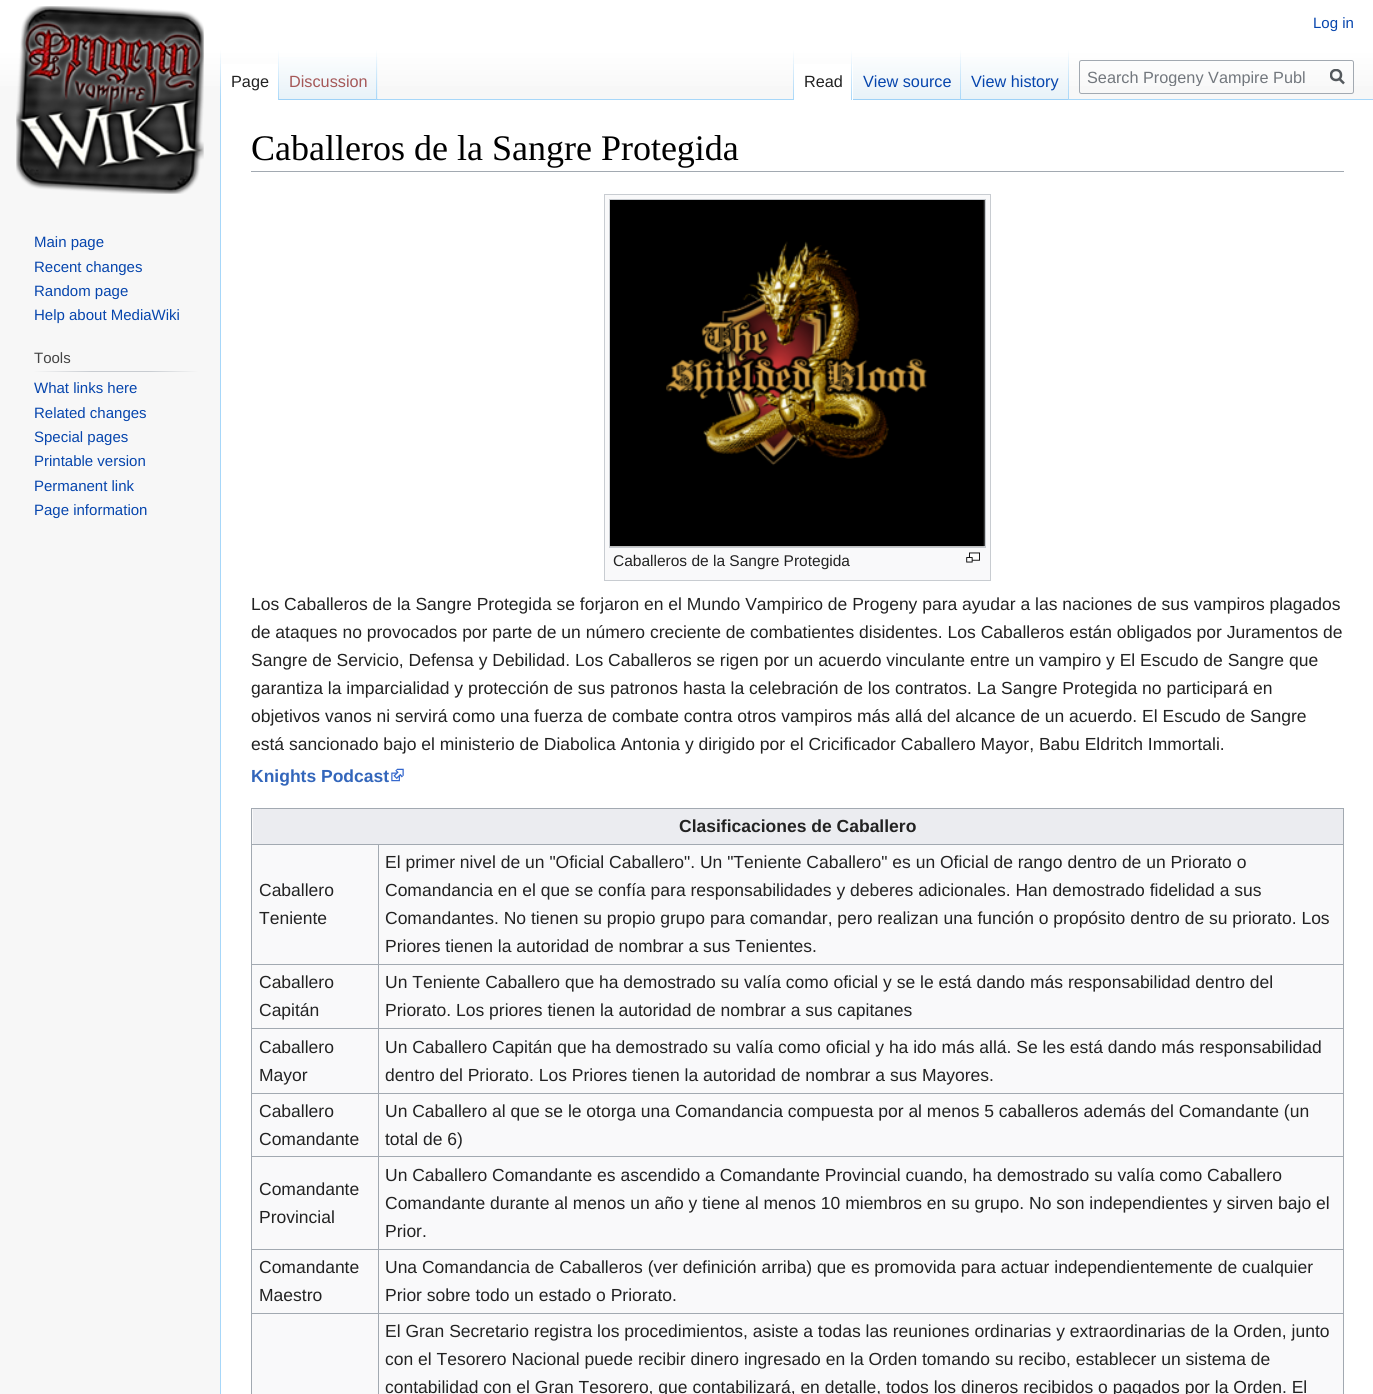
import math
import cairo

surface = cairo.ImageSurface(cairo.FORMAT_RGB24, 1373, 1394)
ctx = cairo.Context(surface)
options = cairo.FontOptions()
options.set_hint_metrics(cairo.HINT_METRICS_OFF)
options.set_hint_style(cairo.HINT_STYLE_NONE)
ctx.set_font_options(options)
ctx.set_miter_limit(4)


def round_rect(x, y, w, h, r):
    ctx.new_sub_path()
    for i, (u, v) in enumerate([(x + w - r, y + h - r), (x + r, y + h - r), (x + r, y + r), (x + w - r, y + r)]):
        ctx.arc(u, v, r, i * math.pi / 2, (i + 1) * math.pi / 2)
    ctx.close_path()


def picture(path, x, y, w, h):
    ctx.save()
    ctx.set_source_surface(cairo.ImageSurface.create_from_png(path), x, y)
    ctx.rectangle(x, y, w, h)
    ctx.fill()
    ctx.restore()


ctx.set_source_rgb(0.965, 0.965, 0.965)
ctx.paint()
gradient = cairo.LinearGradient(687, 0, 687, 100)
gradient.add_color_stop_rgba(0.5, 1, 1, 1, 1)
gradient.add_color_stop_rgba(1, 0.965, 0.965, 0.965, 1)
ctx.set_source(gradient)
ctx.rectangle(0, 0, 1373, 86)
ctx.fill()
ctx.select_font_face("Liberation Sans")
ctx.set_font_size(15)
ctx.set_source_rgb(0.024, 0.271, 0.678)
ctx.move_to(1313, 28)
ctx.show_text("Log in")
ctx.set_source_rgb(0.655, 0.843, 0.976)
ctx.rectangle(220, 99, 1, 1295)
ctx.fill()
gradient = cairo.LinearGradient(221, 50, 221, 100)
gradient.add_color_stop_rgba(0, 0.655, 0.843, 0.976, 0)
gradient.add_color_stop_rgba(1, 0.655, 0.843, 0.976, 1)
ctx.set_source(gradient)
ctx.rectangle(220, 50, 1, 50)
ctx.fill()
ctx.set_source_rgb(1, 1, 1)
ctx.rectangle(221, 64, 57, 36)
ctx.fill()
gradient = cairo.LinearGradient(278, 50, 278, 100)
gradient.add_color_stop_rgba(0, 1, 1, 1, 1)
gradient.add_color_stop_rgba(1, 0.655, 0.843, 0.976, 1)
ctx.set_source(gradient)
ctx.rectangle(278, 50, 1, 50)
ctx.fill()
ctx.set_font_size(16.25)
ctx.set_source_rgb(0.133, 0.133, 0.133)
ctx.move_to(231, 87)
ctx.show_text("Page")
gradient = cairo.LinearGradient(328, 100, 328, 50)
gradient.add_color_stop_rgba(0, 0.467, 0.757, 0.965, 1)
gradient.add_color_stop_rgba(0.03, 0.91, 0.949, 0.973, 1)
gradient.add_color_stop_rgba(1, 1, 1, 1, 1)
ctx.set_source(gradient)
ctx.rectangle(279, 57, 99, 43)
ctx.fill()
gradient = cairo.LinearGradient(377, 50, 377, 100)
gradient.add_color_stop_rgba(0, 0.655, 0.843, 0.976, 0)
gradient.add_color_stop_rgba(1, 0.655, 0.843, 0.976, 1)
ctx.set_source(gradient)
ctx.rectangle(376, 50, 1, 50)
ctx.fill()
ctx.set_source_rgb(0.647, 0.345, 0.345)
ctx.move_to(289, 87)
ctx.show_text("Discussion")
ctx.set_source_rgb(0.655, 0.843, 0.976)
ctx.rectangle(378, 99, 995, 1)
ctx.fill()
gradient = cairo.LinearGradient(793, 50, 793, 100)
gradient.add_color_stop_rgba(0, 0.655, 0.843, 0.976, 0)
gradient.add_color_stop_rgba(1, 0.655, 0.843, 0.976, 1)
ctx.set_source(gradient)
ctx.rectangle(793, 50, 1, 50)
ctx.fill()
ctx.set_source_rgb(1, 1, 1)
ctx.rectangle(794, 64, 59, 36)
ctx.fill()
gradient = cairo.LinearGradient(852, 50, 852, 100)
gradient.add_color_stop_rgba(0, 1, 1, 1, 1)
gradient.add_color_stop_rgba(1, 0.655, 0.843, 0.976, 1)
ctx.set_source(gradient)
ctx.rectangle(851, 50, 1, 50)
ctx.fill()
ctx.set_source_rgb(0.133, 0.133, 0.133)
ctx.move_to(804, 87)
ctx.show_text("Read")
gradient = cairo.LinearGradient(907, 100, 907, 50)
gradient.add_color_stop_rgba(0, 0.467, 0.757, 0.965, 1)
gradient.add_color_stop_rgba(0.03, 0.91, 0.949, 0.973, 1)
gradient.add_color_stop_rgba(1, 1, 1, 1, 1)
ctx.set_source(gradient)
ctx.rectangle(853, 57, 108, 43)
ctx.fill()
gradient = cairo.LinearGradient(961, 50, 961, 100)
gradient.add_color_stop_rgba(0, 0.655, 0.843, 0.976, 0)
gradient.add_color_stop_rgba(1, 0.655, 0.843, 0.976, 1)
ctx.set_source(gradient)
ctx.rectangle(960, 50, 1, 50)
ctx.fill()
ctx.set_source_rgb(0.024, 0.271, 0.678)
ctx.move_to(863, 87)
ctx.show_text("View source")
gradient = cairo.LinearGradient(1015, 100, 1015, 50)
gradient.add_color_stop_rgba(0, 0.467, 0.757, 0.965, 1)
gradient.add_color_stop_rgba(0.03, 0.91, 0.949, 0.973, 1)
gradient.add_color_stop_rgba(1, 1, 1, 1, 1)
ctx.set_source(gradient)
ctx.rectangle(961, 57, 108, 43)
ctx.fill()
gradient = cairo.LinearGradient(1068, 50, 1068, 100)
gradient.add_color_stop_rgba(0, 0.655, 0.843, 0.976, 0)
gradient.add_color_stop_rgba(1, 0.655, 0.843, 0.976, 1)
ctx.set_source(gradient)
ctx.rectangle(1068, 50, 1, 50)
ctx.fill()
ctx.set_source_rgb(0.024, 0.271, 0.678)
ctx.move_to(971, 87)
ctx.show_text("View history")
round_rect(1079.5, 60.5, 274, 33, 2)
ctx.set_source_rgb(0.635, 0.663, 0.694)
ctx.set_line_width(1)
ctx.stroke()
ctx.save()
ctx.rectangle(1086, 68, 220, 18)
ctx.clip()
ctx.set_source_rgb(0.447, 0.467, 0.49)
ctx.move_to(1087, 83)
ctx.show_text("Search Progeny Vampire Publ")
ctx.restore()
ctx.new_path()
ctx.move_to(1344, 83.5)
ctx.line_to(1339, 78.5)
ctx.set_source_rgb(0.329, 0.349, 0.365)
ctx.set_line_width(2.5)
ctx.stroke()
ctx.save()
ctx.rectangle(1330, 69, 15, 16)
ctx.clip()
ctx.arc(1336, 75, 5, 0, 2 * math.pi)
ctx.stroke()
ctx.restore()
picture("img1.png", 16, 6, 188, 188)
ctx.set_font_size(15)
ctx.set_source_rgb(0.024, 0.271, 0.678)
ctx.move_to(34, 247)
ctx.show_text("Main page")
ctx.move_to(34, 272)
ctx.show_text("Recent changes")
ctx.move_to(34, 296)
ctx.show_text("Random page")
ctx.move_to(34, 320)
ctx.show_text("Help about MediaWiki")
ctx.set_source_rgb(0.267, 0.267, 0.267)
ctx.move_to(34, 363)
ctx.show_text("Tools")
gradient = cairo.LinearGradient(34, 372, 198, 372)
gradient.add_color_stop_rgba(0, 0.965, 0.965, 0.965, 1)
gradient.add_color_stop_rgba(0.35, 0.784, 0.8, 0.82, 1)
gradient.add_color_stop_rgba(0.7, 0.784, 0.8, 0.82, 1)
gradient.add_color_stop_rgba(1, 0.965, 0.965, 0.965, 1)
ctx.set_source(gradient)
ctx.rectangle(34, 371, 164, 1)
ctx.fill()
ctx.set_source_rgb(0.024, 0.271, 0.678)
ctx.move_to(34, 393)
ctx.show_text("What links here")
ctx.move_to(34, 418)
ctx.show_text("Related changes")
ctx.move_to(34, 442)
ctx.show_text("Special pages")
ctx.move_to(34, 466)
ctx.show_text("Printable version")
ctx.move_to(34, 491)
ctx.show_text("Permanent link")
ctx.move_to(34, 515)
ctx.show_text("Page information")
ctx.set_source_rgb(1, 1, 1)
ctx.rectangle(221, 100, 1152, 1294)
ctx.fill()
ctx.set_source_rgb(0.635, 0.663, 0.694)
ctx.rectangle(251, 171, 1093, 1)
ctx.fill()
ctx.select_font_face("Liberation Serif")
ctx.set_font_size(36)
ctx.set_source_rgb(0, 0, 0)
ctx.move_to(251, 160)
ctx.show_text("Caballeros de la Sangre Protegida")
ctx.set_source_rgb(0.973, 0.976, 0.98)
ctx.rectangle(604.5, 194.5, 386, 386)
ctx.fill_preserve()
ctx.set_source_rgb(0.784, 0.8, 0.82)
ctx.set_line_width(1)
ctx.stroke()
ctx.set_source_rgb(1, 1, 1)
ctx.rectangle(609.5, 199.5, 376, 348)
ctx.fill_preserve()
ctx.set_source_rgb(0.784, 0.8, 0.82)
ctx.stroke()
picture("img2.png", 610, 200, 375, 347)
ctx.select_font_face("Liberation Sans")
ctx.set_font_size(15.5)
ctx.set_source_rgb(0.133, 0.133, 0.133)
ctx.move_to(613, 566)
ctx.show_text("Caballeros de la Sangre Protegida")
picture("img3.png", 966, 552, 14, 11)
ctx.set_font_size(17.5)
ctx.move_to(251, 610)
ctx.show_text("Los Caballeros de la Sangre Protegida se forjaron en el Mundo Vampirico de Progeny para ayudar a las naciones de sus vampiros plagados")
ctx.move_to(251, 638)
ctx.show_text("de ataques no provocados por parte de un número creciente de combatientes disidentes. Los Caballeros están obligados por Juramentos de")
ctx.move_to(251, 666)
ctx.show_text("Sangre de Servicio, Defensa y Debilidad. Los Caballeros se rigen por un acuerdo vinculante entre un vampiro y El Escudo de Sangre que")
ctx.move_to(251, 694)
ctx.show_text("garantiza la imparcialidad y protección de sus patronos hasta la celebración de los contratos. La Sangre Protegida no participará en")
ctx.move_to(251, 722)
ctx.show_text("objetivos vanos ni servirá como una fuerza de combate contra otros vampiros más allá del alcance de un acuerdo. El Escudo de Sangre")
ctx.move_to(251, 750)
ctx.show_text("está sancionado bajo el ministerio de Diabolica Antonia y dirigido por el Cricificador Caballero Mayor, Babu Eldritch Immortali.")
ctx.select_font_face("Liberation Sans", cairo.FONT_SLANT_NORMAL, cairo.FONT_WEIGHT_BOLD)
ctx.set_source_rgb(0.2, 0.4, 0.733)
ctx.move_to(251, 782)
ctx.show_text("Knights Podcast")
picture("img4.png", 391, 768, 13, 14)
ctx.set_source_rgb(0.973, 0.976, 0.98)
ctx.rectangle(252, 809, 1091, 585)
ctx.fill()
ctx.set_source_rgb(0.635, 0.663, 0.694)
ctx.rectangle(251, 808, 1093, 1)
ctx.fill()
ctx.rectangle(1343, 808, 1, 586)
ctx.fill()
ctx.rectangle(251, 808, 1, 586)
ctx.fill()
ctx.set_source_rgb(0.918, 0.925, 0.941)
ctx.rectangle(253, 809, 1090, 35)
ctx.fill()
ctx.set_source_rgb(0.133, 0.133, 0.133)
ctx.move_to(679, 832)
ctx.show_text("Clasificaciones de Caballero")
ctx.set_source_rgb(0.635, 0.663, 0.694)
ctx.rectangle(378, 844, 966, 1)
ctx.fill()
ctx.rectangle(378, 964, 966, 1)
ctx.fill()
ctx.rectangle(378, 1028, 966, 1)
ctx.fill()
ctx.rectangle(378, 1093, 966, 1)
ctx.fill()
ctx.rectangle(378, 1156, 966, 1)
ctx.fill()
ctx.rectangle(378, 1249, 966, 1)
ctx.fill()
ctx.rectangle(378, 1313, 966, 1)
ctx.fill()
ctx.rectangle(378, 1313, 1, 81)
ctx.fill()
ctx.rectangle(251, 1313, 128, 1)
ctx.fill()
ctx.rectangle(378, 1249, 1, 65)
ctx.fill()
ctx.rectangle(251, 1249, 128, 1)
ctx.fill()
ctx.rectangle(378, 1156, 1, 94)
ctx.fill()
ctx.rectangle(251, 1156, 128, 1)
ctx.fill()
ctx.rectangle(378, 1093, 1, 65)
ctx.fill()
ctx.rectangle(251, 1093, 128, 1)
ctx.fill()
ctx.rectangle(378, 1028, 1, 66)
ctx.fill()
ctx.rectangle(251, 1028, 128, 1)
ctx.fill()
ctx.rectangle(378, 964, 1, 65)
ctx.fill()
ctx.rectangle(251, 964, 128, 1)
ctx.fill()
ctx.rectangle(378, 844, 1, 121)
ctx.fill()
ctx.rectangle(251, 844, 128, 1)
ctx.fill()
ctx.select_font_face("Liberation Sans")
ctx.set_source_rgb(0.133, 0.133, 0.133)
ctx.move_to(259, 896)
ctx.show_text("Caballero")
ctx.move_to(259, 924)
ctx.show_text("Teniente")
ctx.move_to(385, 868)
ctx.show_text("El primer nivel de un \"Oficial Caballero\". Un \"Teniente Caballero\" es un Oficial de rango dentro de un Priorato o")
ctx.move_to(385, 896)
ctx.show_text("Comandancia en el que se confía para responsabilidades y deberes adicionales. Han demostrado fidelidad a sus")
ctx.move_to(385, 924)
ctx.show_text("Comandantes. No tienen su propio grupo para comandar, pero realizan una función o propósito dentro de su priorato. Los")
ctx.move_to(385, 952)
ctx.show_text("Priores tienen la autoridad de nombrar a sus Tenientes.")
ctx.move_to(259, 988)
ctx.show_text("Caballero")
ctx.move_to(259, 1016)
ctx.show_text("Capitán")
ctx.move_to(385, 988)
ctx.show_text("Un Teniente Caballero que ha demostrado su valía como oficial y se le está dando más responsabilidad dentro del")
ctx.move_to(385, 1016)
ctx.show_text("Priorato. Los priores tienen la autoridad de nombrar a sus capitanes")
ctx.move_to(259, 1053)
ctx.show_text("Caballero")
ctx.move_to(259, 1081)
ctx.show_text("Mayor")
ctx.move_to(385, 1053)
ctx.show_text("Un Caballero Capitán que ha demostrado su valía como oficial y ha ido más allá. Se les está dando más responsabilidad")
ctx.move_to(385, 1081)
ctx.show_text("dentro del Priorato. Los Priores tienen la autoridad de nombrar a sus Mayores.")
ctx.move_to(259, 1117)
ctx.show_text("Caballero")
ctx.move_to(259, 1145)
ctx.show_text("Comandante")
ctx.move_to(385, 1117)
ctx.show_text("Un Caballero al que se le otorga una Comandancia compuesta por al menos 5 caballeros además del Comandante (un")
ctx.move_to(385, 1145)
ctx.show_text("total de 6)")
ctx.move_to(259, 1195)
ctx.show_text("Comandante")
ctx.move_to(259, 1223)
ctx.show_text("Provincial")
ctx.move_to(385, 1181)
ctx.show_text("Un Caballero Comandante es ascendido a Comandante Provincial cuando, ha demostrado su valía como Caballero")
ctx.move_to(385, 1209)
ctx.show_text("Comandante durante al menos un año y tiene al menos 10 miembros en su grupo. No son independientes y sirven bajo el")
ctx.move_to(385, 1237)
ctx.show_text("Prior.")
ctx.move_to(259, 1273)
ctx.show_text("Comandante")
ctx.move_to(259, 1301)
ctx.show_text("Maestro")
ctx.move_to(385, 1273)
ctx.show_text("Una Comandancia de Caballeros (ver definición arriba) que es promovida para actuar independientemente de cualquier")
ctx.move_to(385, 1301)
ctx.show_text("Prior sobre todo un estado o Priorato.")
ctx.move_to(385, 1337)
ctx.show_text("El Gran Secretario registra los procedimientos, asiste a todas las reuniones ordinarias y extraordinarias de la Orden, junto")
ctx.move_to(385, 1365)
ctx.show_text("con el Tesorero Nacional puede recibir dinero ingresado en la Orden tomando su recibo, establecer un sistema de")
ctx.move_to(385, 1393)
ctx.show_text("contabilidad con el Gran Tesorero, que contabilizará, en detalle, todos los dineros recibidos o pagados por la Orden. El")
surface.write_to_png("page.png")
